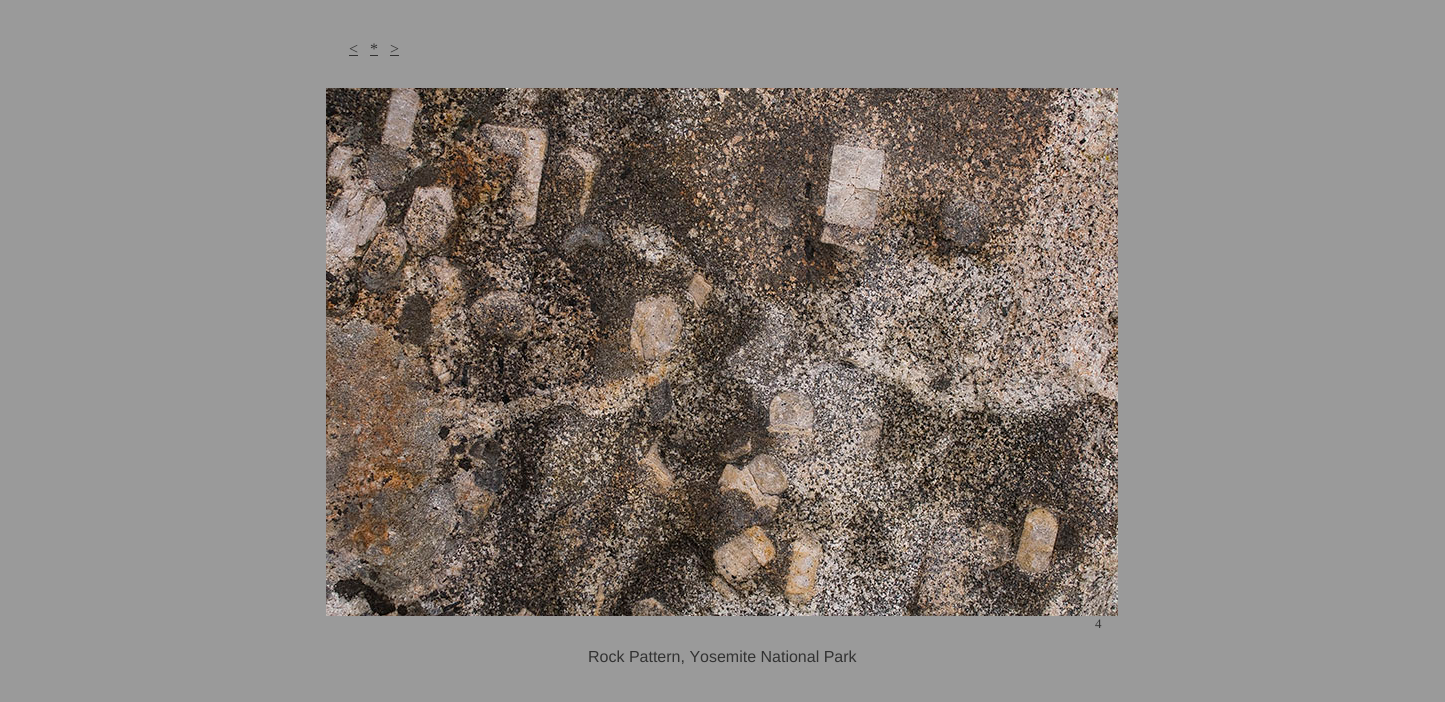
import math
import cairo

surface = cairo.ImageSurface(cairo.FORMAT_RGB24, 1445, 702)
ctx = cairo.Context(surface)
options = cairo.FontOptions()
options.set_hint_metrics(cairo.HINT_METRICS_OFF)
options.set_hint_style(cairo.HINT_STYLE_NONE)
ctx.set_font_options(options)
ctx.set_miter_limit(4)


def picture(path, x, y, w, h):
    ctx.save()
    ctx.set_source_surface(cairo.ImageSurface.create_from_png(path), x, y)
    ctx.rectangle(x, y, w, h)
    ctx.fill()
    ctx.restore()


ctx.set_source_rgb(0.604, 0.604, 0.604)
ctx.paint()
ctx.select_font_face("Liberation Serif")
ctx.set_font_size(16)
ctx.set_source_rgb(0.196, 0.196, 0.196)
ctx.move_to(349, 54)
ctx.show_text("<")
ctx.rectangle(349, 55, 9, 1)
ctx.fill()
ctx.move_to(370, 54)
ctx.show_text("*")
ctx.rectangle(370, 55, 8, 1)
ctx.fill()
ctx.move_to(390, 54)
ctx.show_text(">")
ctx.rectangle(390, 55, 9, 1)
ctx.fill()
picture("img1.png", 326, 88, 792, 528)
ctx.set_font_size(13)
ctx.move_to(1095, 628)
ctx.show_text("4")
ctx.select_font_face("Liberation Sans")
ctx.set_font_size(16)
ctx.move_to(588, 662)
ctx.show_text("Rock Pattern, Yosemite National Park")
surface.write_to_png("page.png")
